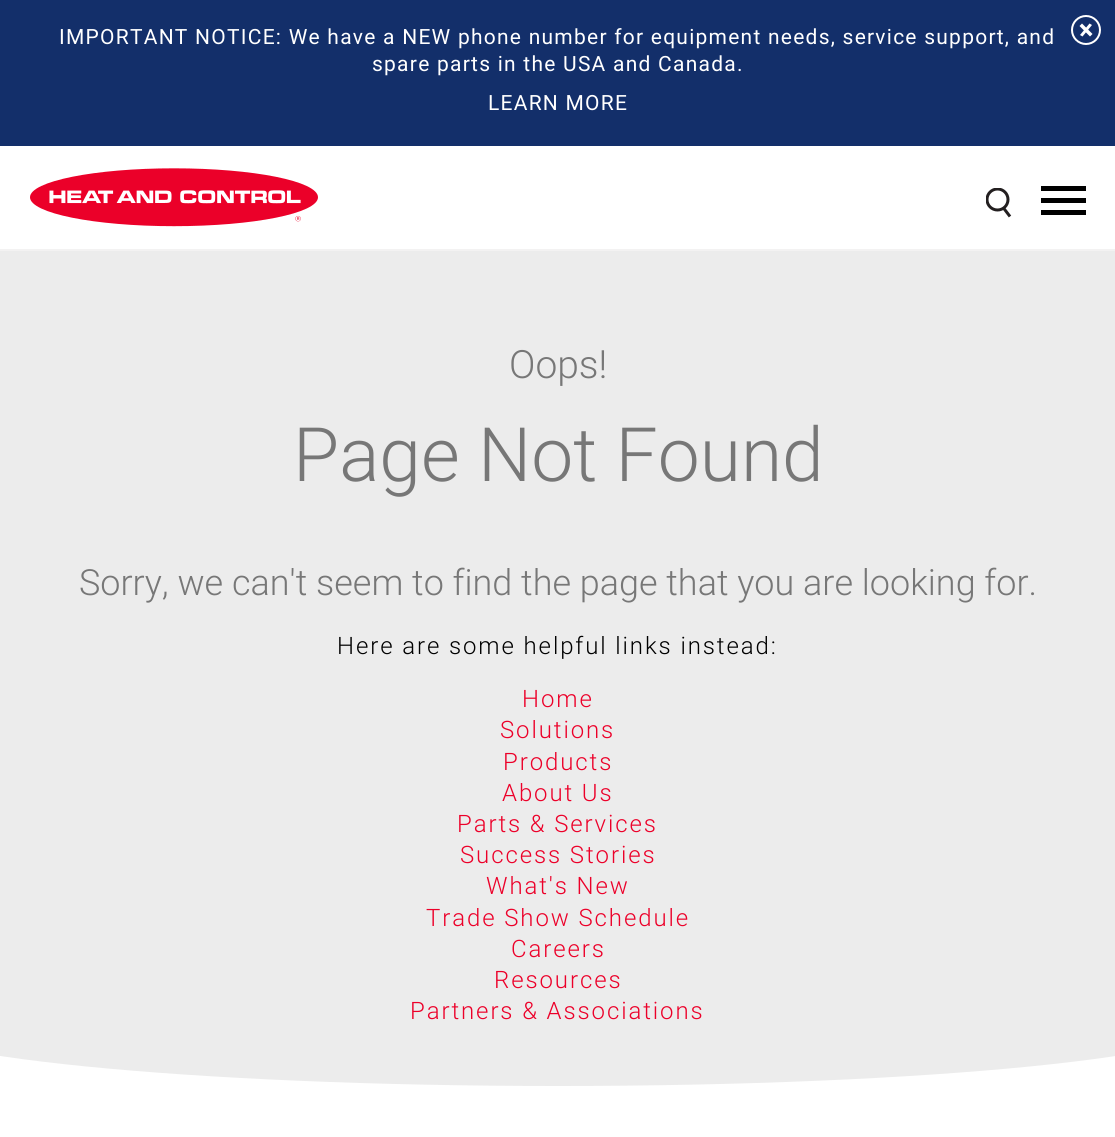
import math
import cairo

surface = cairo.ImageSurface(cairo.FORMAT_RGB24, 1115, 1137)
ctx = cairo.Context(surface)
options = cairo.FontOptions()
options.set_hint_metrics(cairo.HINT_METRICS_OFF)
options.set_hint_style(cairo.HINT_STYLE_NONE)
ctx.set_font_options(options)
ctx.set_miter_limit(4)


def spaced_text(x, y, s, letter, word):
    ctx.move_to(x, y)
    for ch in s:
        ctx.show_text(ch)
        ctx.rel_move_to(letter + word * (ch == ' '), 0)


def picture(path, x, y, w, h):
    ctx.save()
    ctx.set_source_surface(cairo.ImageSurface.create_from_png(path), x, y)
    ctx.rectangle(x, y, w, h)
    ctx.fill()
    ctx.restore()


ctx.set_source_rgb(1, 1, 1)
ctx.paint()
ctx.set_source_rgb(0.925, 0.925, 0.925)
ctx.new_path()
ctx.move_to(-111, 248)
ctx.line_to(-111, 1019)
ctx.curve_to(-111, 1056, 189, 1086, 558, 1086)
ctx.curve_to(927, 1086, 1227, 1056, 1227, 1019)
ctx.line_to(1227, 248)
ctx.close_path()
ctx.fill()
ctx.set_source_rgb(1, 1, 1)
ctx.rectangle(0, 248, 1115, 1)
ctx.fill()
ctx.set_source_rgb(0.953, 0.949, 0.949)
ctx.rectangle(0, 249, 1115, 2)
ctx.fill()
ctx.set_source_rgb(0.075, 0.184, 0.416)
ctx.rectangle(0, 0, 1115, 146)
ctx.fill()
ctx.select_font_face("Roboto")
ctx.set_font_size(21)
ctx.set_source_rgb(1, 1, 1)
spaced_text(59, 44, "IMPORTANT NOTICE: We have a NEW phone number for equipment needs, service support, and", 1.25, 0)
spaced_text(372, 71, "spare parts in the USA and Canada.", 1.25, 0)
spaced_text(488, 110, "LEARN MORE", 1.25, 0)
ctx.new_path()
ctx.arc(1086, 30, 14, 0, 2 * math.pi)
ctx.stroke()
ctx.new_path()
ctx.move_to(1082, 23.5)
ctx.line_to(1092.5, 34)
ctx.line_to(1090, 36.5)
ctx.line_to(1079.5, 26)
ctx.close_path()
ctx.fill()
ctx.new_path()
ctx.move_to(1092, 25)
ctx.line_to(1082.5, 36.5)
ctx.line_to(1080, 35)
ctx.line_to(1089.5, 23.5)
ctx.close_path()
ctx.fill()
picture("img1.png", 30, 168, 288, 59)
ctx.save()
ctx.rectangle(986, 188, 25, 30)
ctx.clip()
ctx.arc(997.5, 199.5, 10.5, 0, 2 * math.pi)
ctx.set_source_rgb(0.137, 0.122, 0.125)
ctx.set_line_width(3)
ctx.stroke()
ctx.restore()
ctx.new_path()
ctx.move_to(1003.5, 208)
ctx.line_to(1010, 216.5)
ctx.set_source_rgb(0.137, 0.122, 0.125)
ctx.set_line_width(3)
ctx.stroke()
ctx.set_source_rgb(0, 0, 0)
ctx.rectangle(1041, 186, 45, 5)
ctx.fill()
ctx.rectangle(1041, 198, 45, 5)
ctx.fill()
ctx.rectangle(1041, 210, 45, 5)
ctx.fill()
ctx.select_font_face("Roboto Light")
ctx.set_font_size(39)
ctx.set_source_rgb(0.467, 0.467, 0.467)
ctx.move_to(509, 378)
ctx.show_text("Oops!")
ctx.set_font_size(75)
ctx.move_to(293, 481)
ctx.show_text("Page Not Found")
ctx.set_font_size(36)
ctx.move_to(79, 595)
ctx.show_text("Sorry, we can't seem to find the page that you are looking for.")
ctx.set_font_size(24)
ctx.set_source_rgb(0, 0, 0)
spaced_text(337, 654, "Here are some helpful links instead:", 1.9, 0)
ctx.set_source_rgb(0.922, 0, 0.161)
spaced_text(522, 707, "Home", 1.9, 0)
spaced_text(500, 738, "Solutions", 1.9, 0)
spaced_text(503, 770, "Products", 1.9, 0)
spaced_text(502, 801, "About Us", 1.9, 0)
spaced_text(457, 832, "Parts & Services", 1.9, 0)
spaced_text(460, 863, "Success Stories", 1.9, 0)
spaced_text(486, 894, "What's New", 1.9, 0)
spaced_text(426, 926, "Trade Show Schedule", 1.9, 0)
spaced_text(511, 957, "Careers", 1.9, 0)
spaced_text(494, 988, "Resources", 1.9, 0)
spaced_text(410, 1019, "Partners & Associations", 1.9, 0)
surface.write_to_png("page.png")
